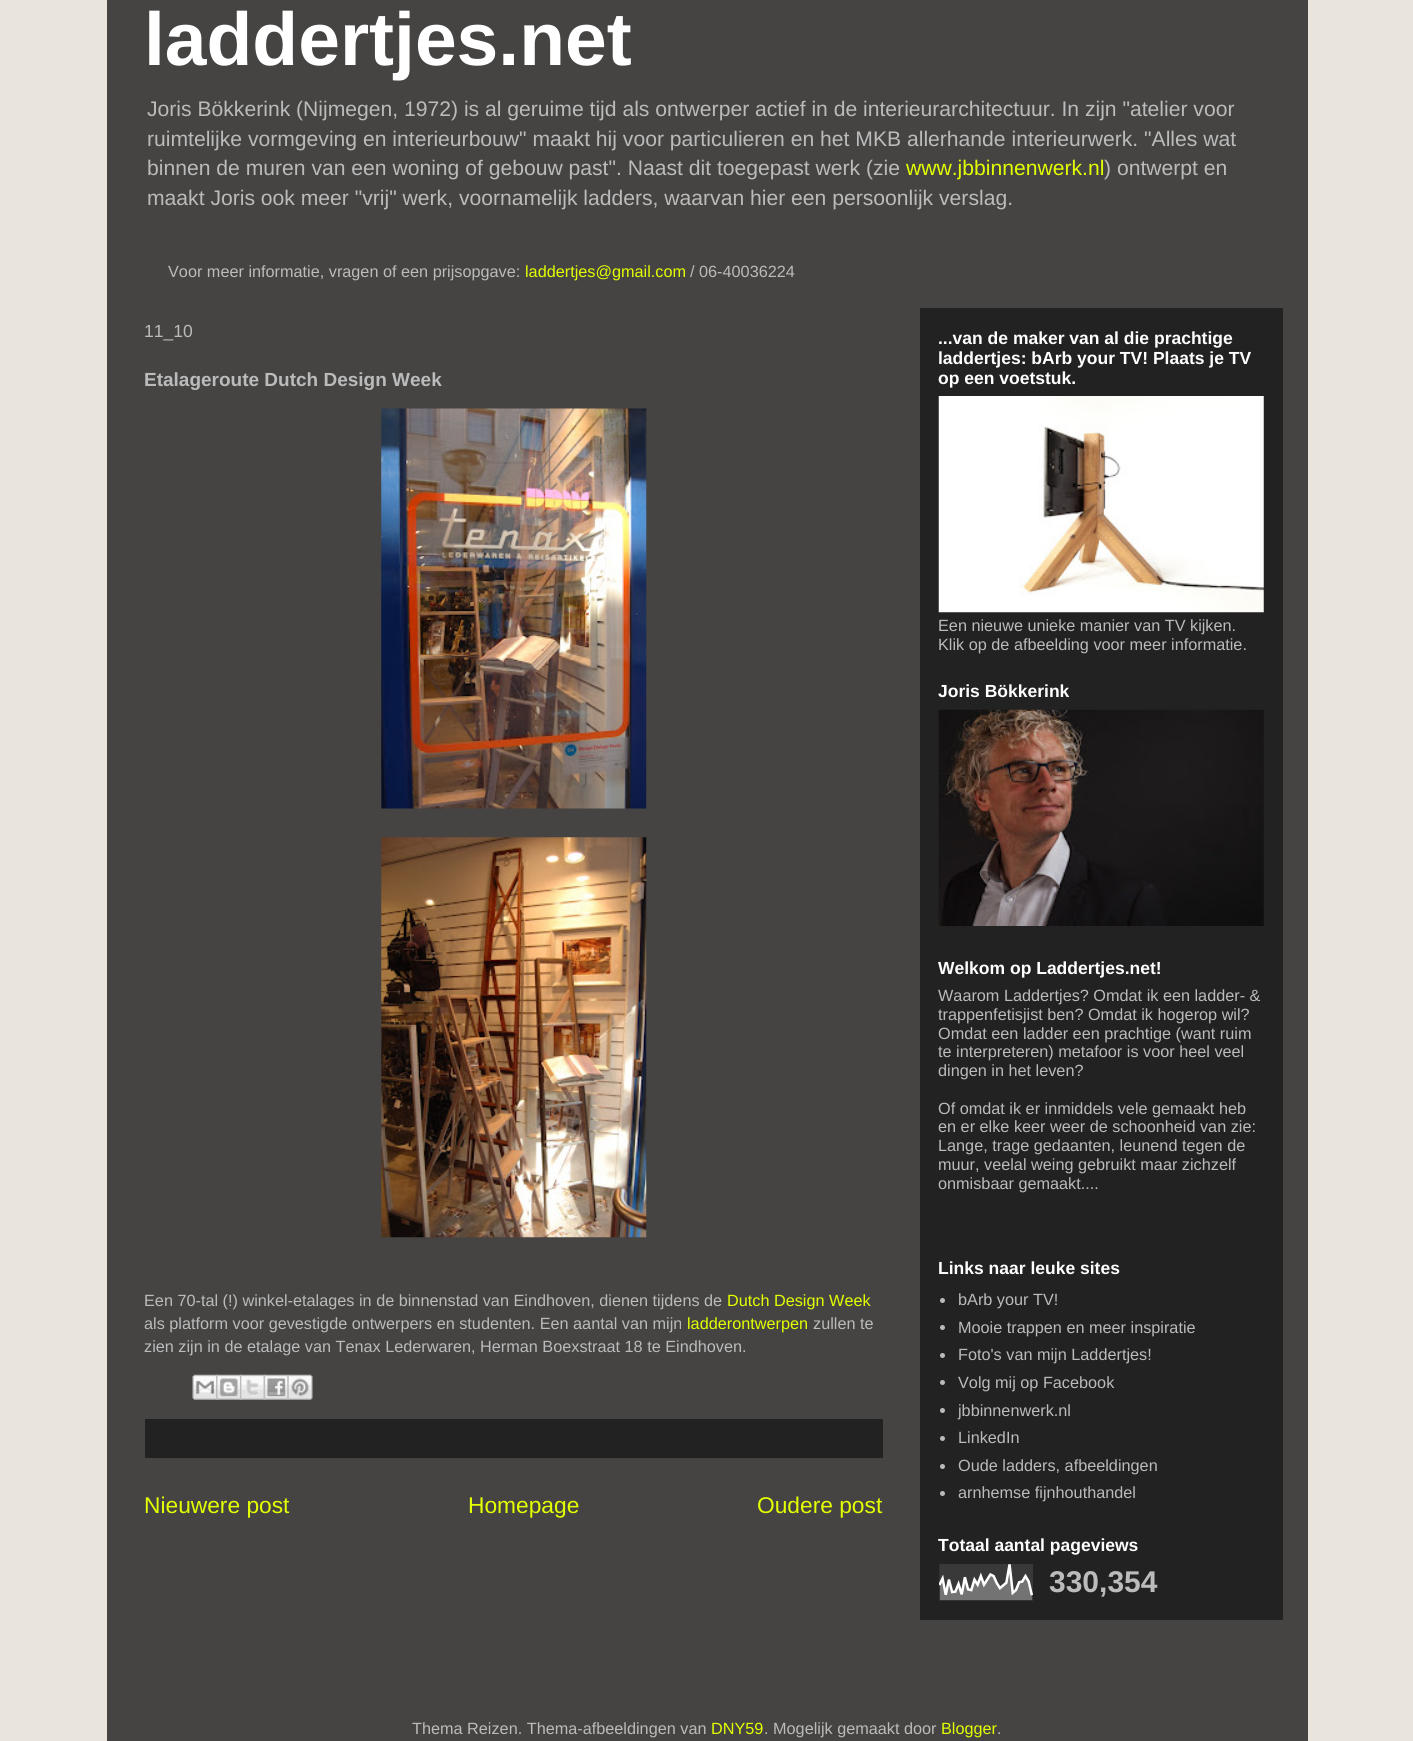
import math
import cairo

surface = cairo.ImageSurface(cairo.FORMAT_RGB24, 1413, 1741)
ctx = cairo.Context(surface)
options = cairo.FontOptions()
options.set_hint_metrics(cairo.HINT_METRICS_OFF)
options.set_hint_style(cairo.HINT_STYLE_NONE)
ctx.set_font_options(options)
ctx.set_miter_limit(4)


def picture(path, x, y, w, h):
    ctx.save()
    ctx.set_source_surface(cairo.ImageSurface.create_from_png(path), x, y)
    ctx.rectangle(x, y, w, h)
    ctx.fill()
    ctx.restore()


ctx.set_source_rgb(0.914, 0.898, 0.863)
ctx.paint()
ctx.set_source_rgb(0.271, 0.267, 0.263)
ctx.rectangle(107, 0, 1201, 1741)
ctx.fill()
ctx.select_font_face("Liberation Sans", cairo.FONT_SLANT_NORMAL, cairo.FONT_WEIGHT_BOLD)
ctx.set_font_size(75)
ctx.set_source_rgb(1, 1, 1)
ctx.move_to(144, 65)
ctx.show_text("laddertjes.net")
ctx.select_font_face("Liberation Sans")
ctx.set_font_size(21.12)
ctx.set_source_rgb(0.733, 0.733, 0.733)
ctx.move_to(147, 116)
ctx.show_text("Joris Bökkerink (Nijmegen, 1972) is al geruime tijd als ontwerper actief in de interieurarchitectuur. In zijn \"atelier voor")
ctx.move_to(147, 146)
ctx.show_text("ruimtelijke vormgeving en interieurbouw\" maakt hij voor particulieren en het MKB allerhande interieurwerk. \"Alles wat")
ctx.move_to(147, 175)
ctx.show_text("binnen de muren van een woning of gebouw past\". Naast dit toegepast werk (zie")
ctx.set_source_rgb(0.89, 1, 0)
ctx.move_to(906, 175)
ctx.show_text("www.jbbinnenwerk.nl")
ctx.set_source_rgb(0.733, 0.733, 0.733)
ctx.move_to(1104, 175)
ctx.show_text(") ontwerpt en")
ctx.move_to(147, 205)
ctx.show_text("maakt Joris ook meer \"vrij\" werk, voornamelijk ladders, waarvan hier een persoonlijk verslag.")
ctx.set_font_size(16.25)
ctx.move_to(168, 277)
ctx.show_text("Voor meer informatie, vragen of een prijsopgave:")
ctx.set_source_rgb(0.89, 1, 0)
ctx.move_to(525, 277)
ctx.show_text("laddertjes@gmail.com")
ctx.set_source_rgb(0.733, 0.733, 0.733)
ctx.move_to(690, 277)
ctx.show_text("/ 06-40036224")
ctx.set_source_rgb(0.133, 0.133, 0.133)
ctx.rectangle(920, 308, 363, 1312)
ctx.fill()
ctx.set_font_size(17.5)
ctx.set_source_rgb(0.733, 0.733, 0.733)
ctx.move_to(144, 337)
ctx.show_text("11_10")
ctx.select_font_face("Liberation Sans", cairo.FONT_SLANT_NORMAL, cairo.FONT_WEIGHT_BOLD)
ctx.set_font_size(19)
ctx.move_to(144, 386)
ctx.show_text("Etalageroute Dutch Design Week")
picture("img1.png", 381, 408, 266, 401)
picture("img2.png", 381, 837, 266, 401)
ctx.select_font_face("Liberation Sans")
ctx.set_font_size(16.25)
ctx.move_to(144, 1306)
ctx.show_text("Een 70-tal (!) winkel-etalages in de binnenstad van Eindhoven, dienen tijdens de")
ctx.set_source_rgb(0.89, 1, 0)
ctx.move_to(727, 1306)
ctx.show_text("Dutch Design Week")
ctx.set_source_rgb(0.733, 0.733, 0.733)
ctx.move_to(144, 1329)
ctx.show_text("als platform voor gevestigde ontwerpers en studenten. Een aantal van mijn")
ctx.set_source_rgb(0.89, 1, 0)
ctx.move_to(687, 1329)
ctx.show_text("ladderontwerpen")
ctx.set_source_rgb(0.733, 0.733, 0.733)
ctx.move_to(813, 1329)
ctx.show_text("zullen te")
ctx.move_to(144, 1352)
ctx.show_text("zien zijn in de etalage van Tenax Lederwaren, Herman Boexstraat 18 te Eindhoven.")
picture("img3.png", 192, 1374, 26, 26)
picture("img4.png", 216, 1374, 26, 26)
picture("img5.png", 240, 1374, 25, 26)
picture("img6.png", 263, 1374, 26, 26)
picture("img7.png", 287, 1374, 26, 26)
ctx.set_source_rgb(0.137, 0.133, 0.133)
ctx.rectangle(145, 1419, 738, 39)
ctx.fill()
ctx.set_font_size(22.75)
ctx.set_source_rgb(0.89, 1, 0)
ctx.move_to(144, 1513)
ctx.show_text("Nieuwere post")
ctx.move_to(468, 1513)
ctx.show_text("Homepage")
ctx.move_to(757, 1513)
ctx.show_text("Oudere post")
ctx.select_font_face("Liberation Sans", cairo.FONT_SLANT_NORMAL, cairo.FONT_WEIGHT_BOLD)
ctx.set_font_size(17.5)
ctx.set_source_rgb(1, 1, 1)
ctx.move_to(938, 344)
ctx.show_text("...van de maker van al die prachtige")
ctx.move_to(938, 364)
ctx.show_text("laddertjes: bArb your TV! Plaats je TV")
ctx.move_to(938, 384)
ctx.show_text("op een voetstuk.")
picture("img8.png", 938, 396, 326, 217)
ctx.select_font_face("Liberation Sans")
ctx.set_font_size(16.25)
ctx.set_source_rgb(0.733, 0.733, 0.733)
ctx.move_to(938, 631)
ctx.show_text("Een nieuwe unieke manier van TV kijken.")
ctx.move_to(938, 650)
ctx.show_text("Klik op de afbeelding voor meer informatie.")
ctx.select_font_face("Liberation Sans", cairo.FONT_SLANT_NORMAL, cairo.FONT_WEIGHT_BOLD)
ctx.set_font_size(17.5)
ctx.set_source_rgb(1, 1, 1)
ctx.move_to(938, 697)
ctx.show_text("Joris Bökkerink")
picture("img9.png", 938, 709, 326, 217)
ctx.move_to(938, 974)
ctx.show_text("Welkom op Laddertjes.net!")
ctx.select_font_face("Liberation Sans")
ctx.set_font_size(16.25)
ctx.set_source_rgb(0.733, 0.733, 0.733)
ctx.move_to(938, 1001)
ctx.show_text("Waarom Laddertjes? Omdat ik een ladder- &")
ctx.move_to(938, 1020)
ctx.show_text("trappenfetisjist ben? Omdat ik hogerop wil?")
ctx.move_to(938, 1039)
ctx.show_text("Omdat een ladder een prachtige (want ruim")
ctx.move_to(938, 1057)
ctx.show_text("te interpreteren) metafoor is voor heel veel")
ctx.move_to(938, 1076)
ctx.show_text("dingen in het leven?")
ctx.move_to(938, 1114)
ctx.show_text("Of omdat ik er inmiddels vele gemaakt heb")
ctx.move_to(938, 1132)
ctx.show_text("en er elke keer weer de schoonheid van zie:")
ctx.move_to(938, 1151)
ctx.show_text("Lange, trage gedaanten, leunend tegen de")
ctx.move_to(938, 1170)
ctx.show_text("muur, veelal weing gebruikt maar zichzelf")
ctx.move_to(938, 1189)
ctx.show_text("onmisbaar gemaakt....")
ctx.select_font_face("Liberation Sans", cairo.FONT_SLANT_NORMAL, cairo.FONT_WEIGHT_BOLD)
ctx.set_font_size(17.5)
ctx.set_source_rgb(1, 1, 1)
ctx.move_to(938, 1274)
ctx.show_text("Links naar leuke sites")
ctx.set_source_rgb(0.733, 0.733, 0.733)
ctx.new_path()
ctx.arc(942.5, 1300.5, 2.5, 0, 2 * math.pi)
ctx.fill()
ctx.select_font_face("Liberation Sans")
ctx.set_font_size(16.25)
ctx.move_to(958, 1305)
ctx.show_text("bArb your TV!")
ctx.new_path()
ctx.arc(942.5, 1327.5, 2.5, 0, 2 * math.pi)
ctx.fill()
ctx.move_to(958, 1333)
ctx.show_text("Mooie trappen en meer inspiratie")
ctx.new_path()
ctx.arc(942.5, 1355.5, 2.5, 0, 2 * math.pi)
ctx.fill()
ctx.move_to(958, 1360)
ctx.show_text("Foto's van mijn Laddertjes!")
ctx.new_path()
ctx.arc(942.5, 1382.5, 2.5, 0, 2 * math.pi)
ctx.fill()
ctx.move_to(958, 1388)
ctx.show_text("Volg mij op Facebook")
ctx.new_path()
ctx.arc(942.5, 1410.5, 2.5, 0, 2 * math.pi)
ctx.fill()
ctx.move_to(958, 1416)
ctx.show_text("jbbinnenwerk.nl")
ctx.new_path()
ctx.arc(942.5, 1438.5, 2.5, 0, 2 * math.pi)
ctx.fill()
ctx.move_to(958, 1443)
ctx.show_text("LinkedIn")
ctx.new_path()
ctx.arc(942.5, 1466.5, 2.5, 0, 2 * math.pi)
ctx.fill()
ctx.move_to(958, 1471)
ctx.show_text("Oude ladders, afbeeldingen")
ctx.new_path()
ctx.arc(942.5, 1493.5, 2.5, 0, 2 * math.pi)
ctx.fill()
ctx.move_to(958, 1498)
ctx.show_text("arnhemse fijnhouthandel")
ctx.select_font_face("Liberation Sans", cairo.FONT_SLANT_NORMAL, cairo.FONT_WEIGHT_BOLD)
ctx.set_font_size(17.5)
ctx.set_source_rgb(1, 1, 1)
ctx.move_to(938, 1551)
ctx.show_text("Totaal aantal pageviews")
picture("img10.png", 939, 1564, 94, 37)
ctx.set_font_size(30)
ctx.set_source_rgb(0.733, 0.733, 0.733)
ctx.move_to(1049, 1592)
ctx.show_text("330,354")
ctx.select_font_face("Liberation Sans")
ctx.set_font_size(16.25)
ctx.move_to(412, 1734)
ctx.show_text("Thema Reizen. Thema-afbeeldingen van")
ctx.set_source_rgb(0.89, 1, 0)
ctx.move_to(711, 1734)
ctx.show_text("DNY59")
ctx.set_source_rgb(0.733, 0.733, 0.733)
ctx.move_to(764, 1734)
ctx.show_text(". Mogelijk gemaakt door")
ctx.set_source_rgb(0.89, 1, 0)
ctx.move_to(941, 1734)
ctx.show_text("Blogger")
ctx.set_source_rgb(0.733, 0.733, 0.733)
ctx.move_to(997, 1734)
ctx.show_text(".")
surface.write_to_png("page.png")
